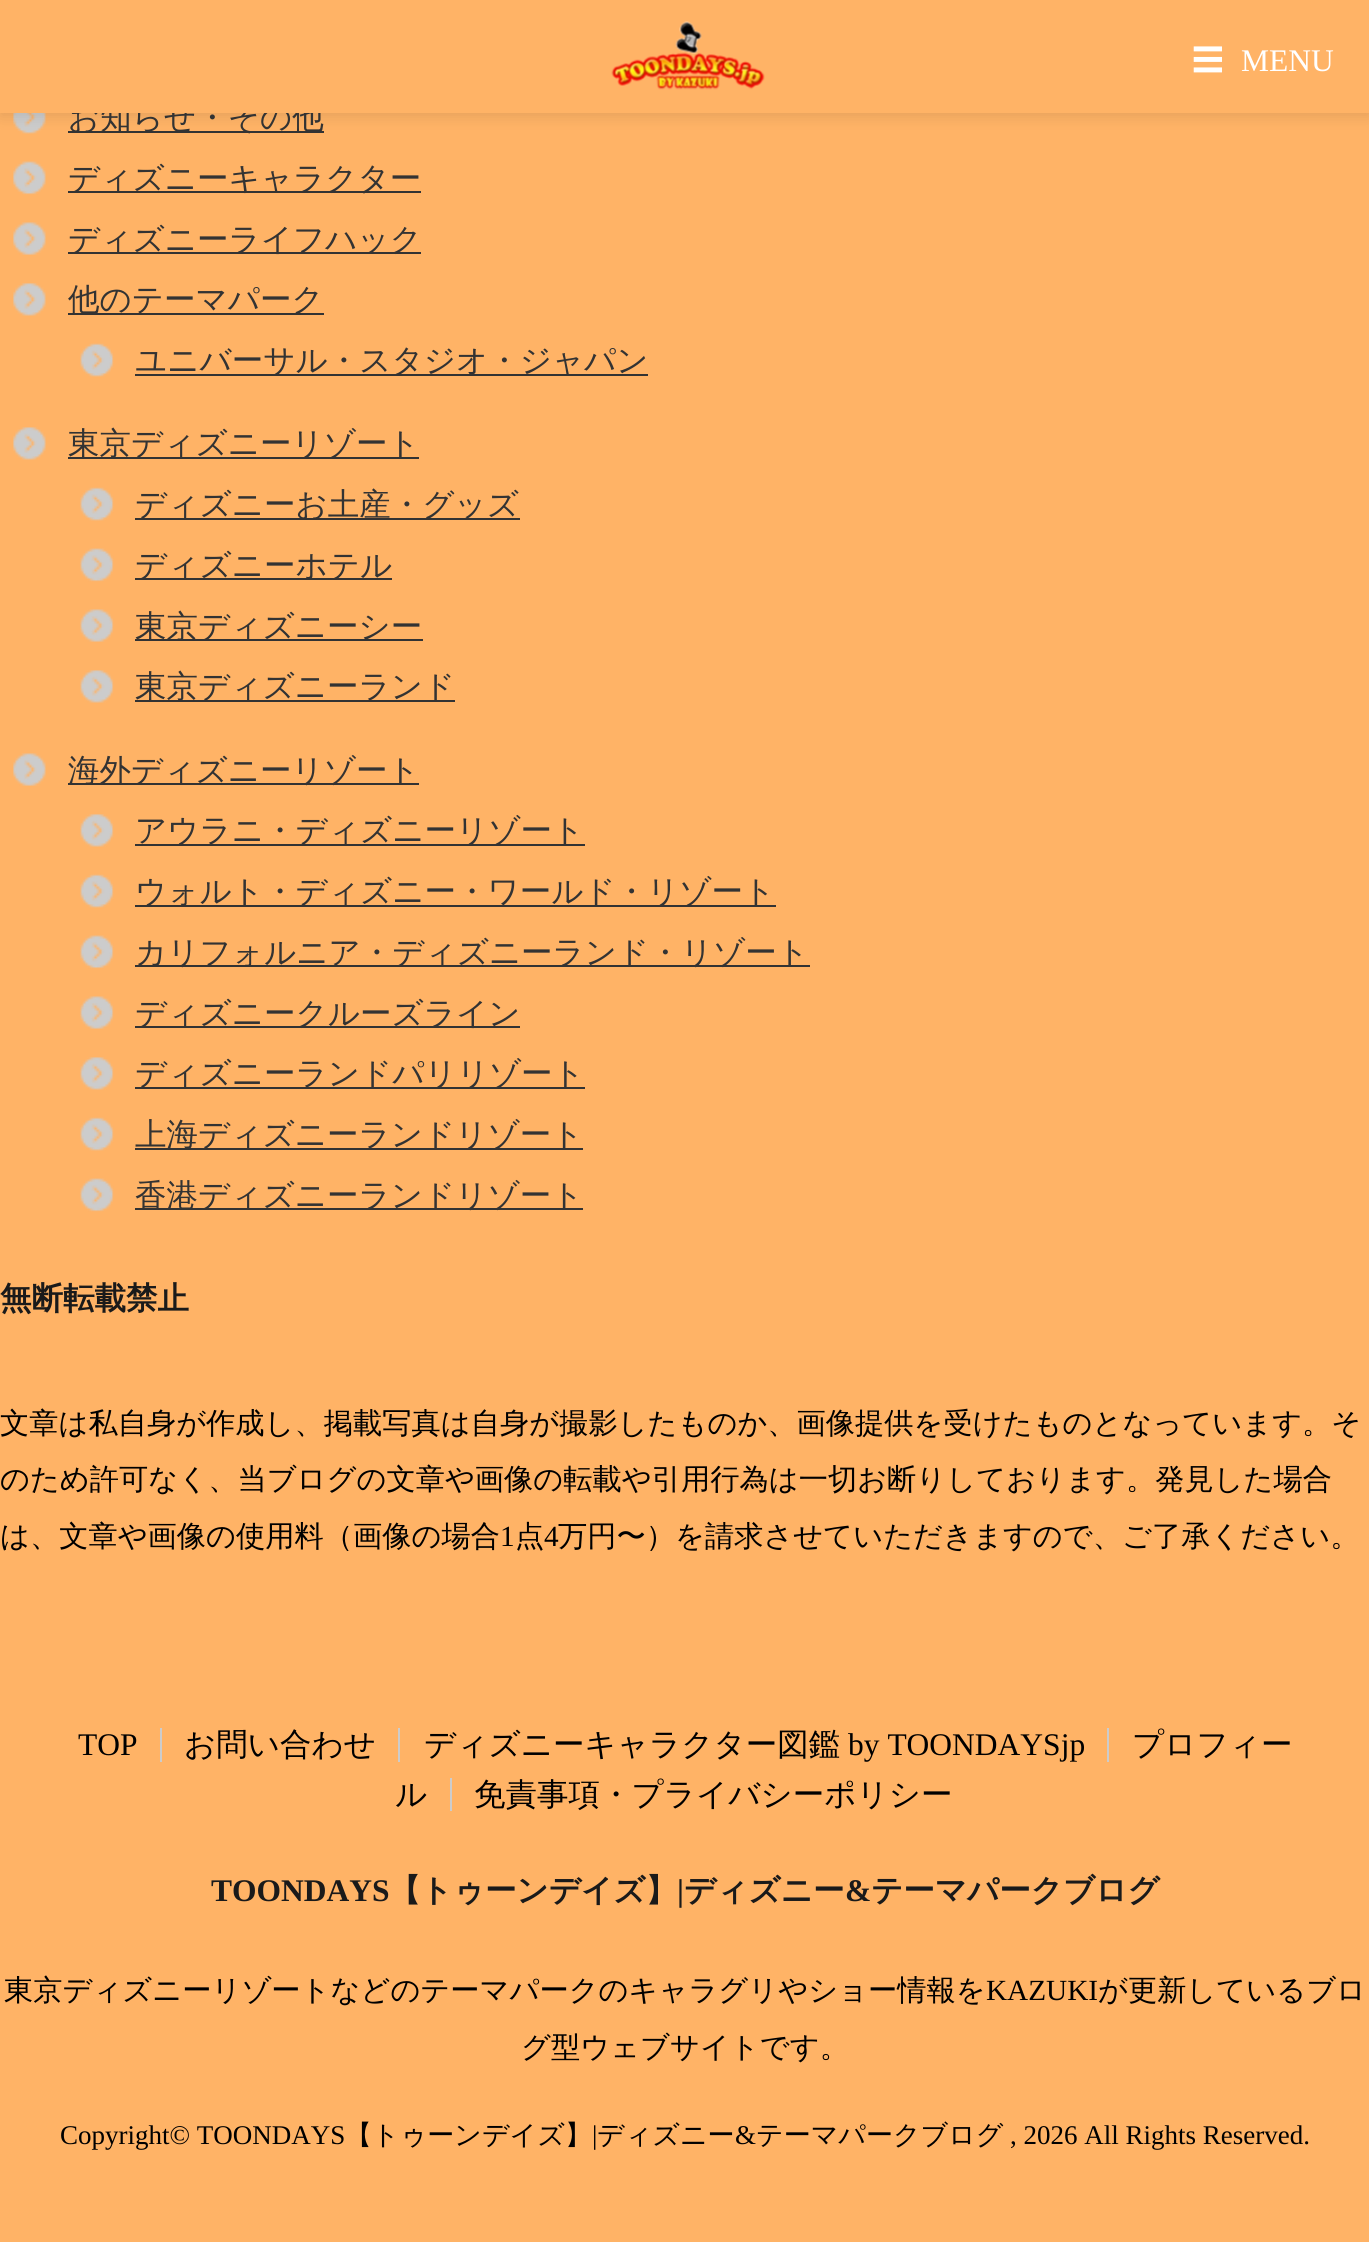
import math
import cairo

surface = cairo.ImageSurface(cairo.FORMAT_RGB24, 1369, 2242)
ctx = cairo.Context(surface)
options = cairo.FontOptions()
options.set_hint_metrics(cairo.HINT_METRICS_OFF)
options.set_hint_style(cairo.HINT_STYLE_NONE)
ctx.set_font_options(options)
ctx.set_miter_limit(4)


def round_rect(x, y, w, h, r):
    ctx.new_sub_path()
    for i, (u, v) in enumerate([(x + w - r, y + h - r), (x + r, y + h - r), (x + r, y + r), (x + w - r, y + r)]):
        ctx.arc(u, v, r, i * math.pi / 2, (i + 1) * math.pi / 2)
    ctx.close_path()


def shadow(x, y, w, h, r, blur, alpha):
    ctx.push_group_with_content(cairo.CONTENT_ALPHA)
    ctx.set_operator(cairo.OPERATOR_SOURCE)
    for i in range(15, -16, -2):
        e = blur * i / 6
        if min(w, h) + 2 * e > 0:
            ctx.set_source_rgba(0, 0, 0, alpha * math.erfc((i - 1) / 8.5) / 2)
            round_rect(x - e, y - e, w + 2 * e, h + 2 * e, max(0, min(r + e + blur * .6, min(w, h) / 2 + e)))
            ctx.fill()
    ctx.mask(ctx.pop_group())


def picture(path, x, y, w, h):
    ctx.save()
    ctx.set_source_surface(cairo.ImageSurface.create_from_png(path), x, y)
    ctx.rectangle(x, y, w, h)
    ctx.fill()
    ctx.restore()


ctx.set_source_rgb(1, 0.702, 0.4)
ctx.paint()
picture("img2.png", 13, 113, 33, 21)
ctx.set_source_rgb(0.2, 0.2, 0.2)
ctx.rectangle(68, 131, 256, 2)
ctx.fill()
ctx.set_source_rgb(0, 0, 0)
shadow(0, 5, 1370, 112, 0, 7, 0.1)
ctx.select_font_face("WenQuanYi Zen Hei Medium")
ctx.set_font_size(31.5)
ctx.set_source_rgb(0.2, 0.2, 0.2)
ctx.move_to(68, 128)
ctx.show_text("お知らせ・その他")
ctx.set_source_rgb(1, 0.702, 0.4)
ctx.rectangle(0, 0, 1369, 113)
ctx.fill()
picture("img1.png", 611, 21, 154, 69)
ctx.set_source_rgb(1, 1, 1)
ctx.move_to(1192, 71)
ctx.show_text("☰")
ctx.select_font_face("Liberation Serif")
ctx.move_to(1241, 71)
ctx.show_text("MENU")
picture("img3.png", 13, 161, 33, 34)
ctx.set_source_rgb(0.2, 0.2, 0.2)
ctx.rectangle(68, 191, 353, 2)
ctx.fill()
ctx.select_font_face("WenQuanYi Zen Hei Medium")
ctx.move_to(68, 189)
ctx.show_text("ディズニーキャラクター")
picture("img4.png", 13, 222, 33, 33)
ctx.rectangle(68, 252, 353, 2)
ctx.fill()
ctx.move_to(68, 250)
ctx.show_text("ディズニーライフハック")
picture("img5.png", 13, 283, 33, 33)
ctx.rectangle(68, 313, 256, 2)
ctx.fill()
ctx.move_to(68, 310)
ctx.show_text("他のテーマパーク")
picture("img6.png", 80, 343, 34, 34)
ctx.rectangle(135, 374, 513, 2)
ctx.fill()
ctx.move_to(135, 371)
ctx.show_text("ユニバーサル・スタジオ・ジャパン")
picture("img5.png", 13, 427, 33, 33)
ctx.rectangle(68, 457, 351, 2)
ctx.fill()
ctx.move_to(68, 454)
ctx.show_text("東京ディズニーリゾート")
picture("img6.png", 80, 487, 34, 34)
ctx.rectangle(135, 518, 385, 2)
ctx.fill()
ctx.move_to(135, 515)
ctx.show_text("ディズニーお土産・グッズ")
picture("img7.png", 80, 548, 34, 34)
ctx.rectangle(135, 578, 257, 2)
ctx.fill()
ctx.move_to(135, 576)
ctx.show_text("ディズニーホテル")
picture("img8.png", 80, 609, 34, 33)
ctx.rectangle(135, 639, 288, 2)
ctx.fill()
ctx.move_to(135, 637)
ctx.show_text("東京ディズニーシー")
picture("img9.png", 80, 670, 34, 33)
ctx.rectangle(135, 700, 320, 2)
ctx.fill()
ctx.move_to(135, 697)
ctx.show_text("東京ディズニーランド")
picture("img10.png", 13, 753, 33, 33)
ctx.rectangle(68, 783, 351, 2)
ctx.fill()
ctx.move_to(68, 781)
ctx.show_text("海外ディズニーリゾート")
picture("img9.png", 80, 814, 34, 33)
ctx.rectangle(135, 844, 450, 2)
ctx.fill()
ctx.move_to(135, 841)
ctx.show_text("アウラニ・ディズニーリゾート")
picture("img6.png", 80, 874, 34, 34)
ctx.rectangle(135, 905, 641, 2)
ctx.fill()
ctx.move_to(135, 902)
ctx.show_text("ウォルト・ディズニー・ワールド・リゾート")
picture("img7.png", 80, 935, 34, 34)
ctx.rectangle(135, 965, 675, 2)
ctx.fill()
ctx.move_to(135, 963)
ctx.show_text("カリフォルニア・ディズニーランド・リゾート")
picture("img8.png", 80, 996, 34, 33)
ctx.rectangle(135, 1026, 385, 2)
ctx.fill()
ctx.move_to(135, 1024)
ctx.show_text("ディズニークルーズライン")
picture("img9.png", 80, 1057, 34, 33)
ctx.rectangle(135, 1087, 450, 2)
ctx.fill()
ctx.move_to(135, 1084)
ctx.show_text("ディズニーランドパリリゾート")
picture("img11.png", 80, 1117, 34, 34)
ctx.rectangle(135, 1148, 448, 2)
ctx.fill()
ctx.move_to(135, 1145)
ctx.show_text("上海ディズニーランドリゾート")
picture("img7.png", 80, 1178, 34, 34)
ctx.rectangle(135, 1208, 448, 2)
ctx.fill()
ctx.move_to(135, 1206)
ctx.show_text("香港ディズニーランドリゾート")
ctx.select_font_face("WenQuanYi Zen Hei", cairo.FONT_SLANT_NORMAL, cairo.FONT_WEIGHT_BOLD)
ctx.set_source_rgb(0.102, 0.102, 0.102)
ctx.move_to(0, 1309)
ctx.show_text("無断転載禁止")
ctx.select_font_face("WenQuanYi Zen Hei Medium")
ctx.set_font_size(29.25)
ctx.set_source_rgb(0, 0, 0)
ctx.move_to(0, 1433)
ctx.show_text("文章は私自身が作成し、掲載写真は自身が撮影したものか、画像提供を受けたものとなっています。そ")
ctx.move_to(0, 1489)
ctx.show_text("のため許可なく、当ブログの文章や画像の転載や引用行為は一切お断りしております。発見した場合")
ctx.move_to(0, 1546)
ctx.show_text("は、文章や画像の使用料（画像の場合")
ctx.select_font_face("Liberation Serif")
ctx.move_to(500, 1546)
ctx.show_text("1")
ctx.select_font_face("WenQuanYi Zen Hei Medium")
ctx.move_to(515, 1546)
ctx.show_text("点")
ctx.select_font_face("Liberation Serif")
ctx.move_to(544, 1546)
ctx.show_text("4")
ctx.select_font_face("WenQuanYi Zen Hei Medium")
ctx.move_to(558, 1546)
ctx.show_text("万円〜）を請求させていただきますので、ご了承ください。")
ctx.select_font_face("Liberation Serif")
ctx.set_font_size(31.5)
ctx.move_to(78, 1755)
ctx.show_text("TOP")
ctx.select_font_face("WenQuanYi Zen Hei Medium")
ctx.move_to(184, 1755)
ctx.show_text("お問い合わせ")
ctx.set_source_rgb(0.8, 0.8, 0.8)
ctx.rectangle(160, 1728, 2, 34)
ctx.fill()
ctx.set_source_rgb(0, 0, 0)
ctx.move_to(424, 1755)
ctx.show_text("ディズニーキャラクター図鑑")
ctx.set_source_rgb(0.8, 0.8, 0.8)
ctx.rectangle(398, 1728, 2, 34)
ctx.fill()
ctx.select_font_face("Liberation Serif")
ctx.set_source_rgb(0, 0, 0)
ctx.move_to(848, 1755)
ctx.show_text("by TOONDAYSjp")
ctx.select_font_face("WenQuanYi Zen Hei Medium")
ctx.move_to(1132, 1755)
ctx.show_text("プロフィー")
ctx.set_source_rgb(0.8, 0.8, 0.8)
ctx.rectangle(1107, 1728, 2, 34)
ctx.fill()
ctx.set_source_rgb(0, 0, 0)
ctx.move_to(395, 1805)
ctx.show_text("ル")
ctx.move_to(474, 1805)
ctx.show_text("免責事項・プライバシーポリシー")
ctx.set_source_rgb(0.8, 0.8, 0.8)
ctx.rectangle(450, 1778, 2, 33)
ctx.fill()
ctx.select_font_face("Liberation Serif", cairo.FONT_SLANT_NORMAL, cairo.FONT_WEIGHT_BOLD)
ctx.set_source_rgb(0.102, 0.102, 0.102)
ctx.move_to(211, 1901)
ctx.show_text("TOONDAYS")
ctx.select_font_face("WenQuanYi Zen Hei", cairo.FONT_SLANT_NORMAL, cairo.FONT_WEIGHT_BOLD)
ctx.move_to(389, 1901)
ctx.show_text("【トゥーンデイズ】")
ctx.select_font_face("Liberation Serif", cairo.FONT_SLANT_NORMAL, cairo.FONT_WEIGHT_BOLD)
ctx.move_to(677, 1901)
ctx.show_text("|")
ctx.select_font_face("WenQuanYi Zen Hei", cairo.FONT_SLANT_NORMAL, cairo.FONT_WEIGHT_BOLD)
ctx.move_to(684, 1901)
ctx.show_text("ディズニー")
ctx.select_font_face("Liberation Serif", cairo.FONT_SLANT_NORMAL, cairo.FONT_WEIGHT_BOLD)
ctx.move_to(845, 1901)
ctx.show_text("&")
ctx.select_font_face("WenQuanYi Zen Hei", cairo.FONT_SLANT_NORMAL, cairo.FONT_WEIGHT_BOLD)
ctx.move_to(871, 1901)
ctx.show_text("テーマパークブログ")
ctx.select_font_face("WenQuanYi Zen Hei Medium")
ctx.set_font_size(29.25)
ctx.set_source_rgb(0, 0, 0)
ctx.move_to(4, 2000)
ctx.show_text("東京ディズニーリゾートなどのテーマパークのキャラグリやショー情報を")
ctx.select_font_face("Liberation Serif")
ctx.move_to(986, 2000)
ctx.show_text("KAZUKI")
ctx.select_font_face("WenQuanYi Zen Hei Medium")
ctx.move_to(1098, 2000)
ctx.show_text("が更新しているブロ")
ctx.move_to(521, 2057)
ctx.show_text("グ型ウェブサイトです。")
ctx.select_font_face("Liberation Serif")
ctx.set_font_size(27)
ctx.move_to(60, 2144)
ctx.show_text("Copyright© TOONDAYS")
ctx.select_font_face("WenQuanYi Zen Hei Medium")
ctx.move_to(345, 2144)
ctx.show_text("【トゥーンデイズ】")
ctx.select_font_face("Liberation Serif")
ctx.move_to(592, 2144)
ctx.show_text("|")
ctx.select_font_face("WenQuanYi Zen Hei Medium")
ctx.move_to(597, 2144)
ctx.show_text("ディズニー")
ctx.select_font_face("Liberation Serif")
ctx.move_to(735, 2144)
ctx.show_text("&")
ctx.select_font_face("WenQuanYi Zen Hei Medium")
ctx.move_to(756, 2144)
ctx.show_text("テーマパークブログ")
ctx.select_font_face("Liberation Serif")
ctx.move_to(1010, 2144)
ctx.show_text(", 2026 All Rights Reserved.")
surface.write_to_png("page.png")
